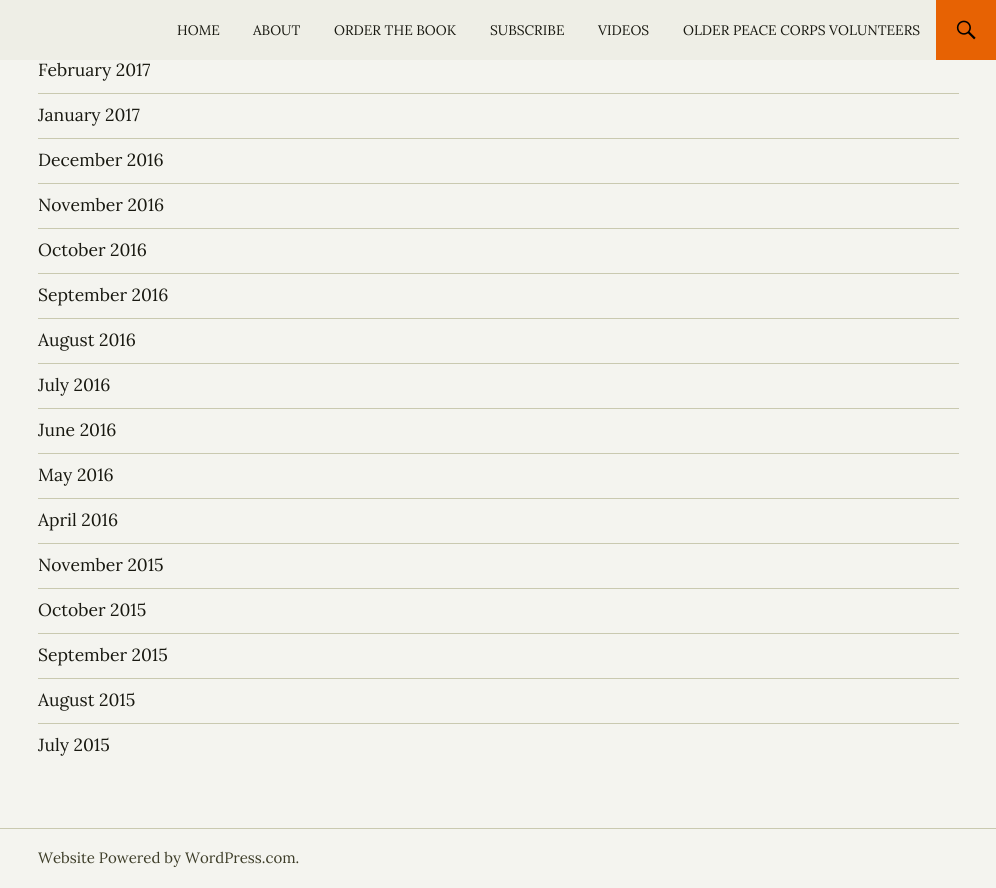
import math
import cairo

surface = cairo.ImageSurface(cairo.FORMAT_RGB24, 996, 888)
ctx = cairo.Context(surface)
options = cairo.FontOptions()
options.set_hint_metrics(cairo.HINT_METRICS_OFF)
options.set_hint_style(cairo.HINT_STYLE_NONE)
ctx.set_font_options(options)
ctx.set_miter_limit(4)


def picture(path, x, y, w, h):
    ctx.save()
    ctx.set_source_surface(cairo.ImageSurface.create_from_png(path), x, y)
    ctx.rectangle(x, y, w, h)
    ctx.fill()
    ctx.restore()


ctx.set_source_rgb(0.957, 0.957, 0.937)
ctx.paint()
ctx.set_source_rgb(0.933, 0.933, 0.902)
ctx.rectangle(0, 0, 936, 60)
ctx.fill()
ctx.select_font_face("Lora")
ctx.set_font_size(13.75)
ctx.set_source_rgb(0.094, 0.094, 0.063)
ctx.move_to(177, 35)
ctx.show_text("HOME")
ctx.move_to(253, 35)
ctx.show_text("ABOUT")
ctx.move_to(334, 35)
ctx.show_text("ORDER THE BOOK")
ctx.move_to(490, 35)
ctx.show_text("SUBSCRIBE")
ctx.move_to(598, 35)
ctx.show_text("VIDEOS")
ctx.move_to(683, 35)
ctx.show_text("OLDER PEACE CORPS VOLUNTEERS")
ctx.set_source_rgb(0.906, 0.384, 0.012)
ctx.rectangle(936, 0, 60, 60)
ctx.fill()
picture("img1.png", 956, 20, 20, 20)
ctx.set_source_rgb(0.788, 0.788, 0.69)
ctx.rectangle(0, 828, 996, 1)
ctx.fill()
ctx.set_font_size(17.5)
ctx.set_source_rgb(0.094, 0.094, 0.063)
ctx.move_to(38, 76)
ctx.show_text("February 2017")
ctx.set_source_rgb(0.788, 0.788, 0.69)
ctx.rectangle(38, 93, 921, 1)
ctx.fill()
ctx.set_source_rgb(0.094, 0.094, 0.063)
ctx.move_to(38, 121)
ctx.show_text("January 2017")
ctx.set_source_rgb(0.788, 0.788, 0.69)
ctx.rectangle(38, 138, 921, 1)
ctx.fill()
ctx.set_source_rgb(0.094, 0.094, 0.063)
ctx.move_to(38, 166)
ctx.show_text("December 2016")
ctx.set_source_rgb(0.788, 0.788, 0.69)
ctx.rectangle(38, 183, 921, 1)
ctx.fill()
ctx.set_source_rgb(0.094, 0.094, 0.063)
ctx.move_to(38, 211)
ctx.show_text("November 2016")
ctx.set_source_rgb(0.788, 0.788, 0.69)
ctx.rectangle(38, 228, 921, 1)
ctx.fill()
ctx.set_source_rgb(0.094, 0.094, 0.063)
ctx.move_to(38, 256)
ctx.show_text("October 2016")
ctx.set_source_rgb(0.788, 0.788, 0.69)
ctx.rectangle(38, 273, 921, 1)
ctx.fill()
ctx.set_source_rgb(0.094, 0.094, 0.063)
ctx.move_to(38, 301)
ctx.show_text("September 2016")
ctx.set_source_rgb(0.788, 0.788, 0.69)
ctx.rectangle(38, 318, 921, 1)
ctx.fill()
ctx.set_source_rgb(0.094, 0.094, 0.063)
ctx.move_to(38, 346)
ctx.show_text("August 2016")
ctx.set_source_rgb(0.788, 0.788, 0.69)
ctx.rectangle(38, 363, 921, 1)
ctx.fill()
ctx.set_source_rgb(0.094, 0.094, 0.063)
ctx.move_to(38, 391)
ctx.show_text("July 2016")
ctx.set_source_rgb(0.788, 0.788, 0.69)
ctx.rectangle(38, 408, 921, 1)
ctx.fill()
ctx.set_source_rgb(0.094, 0.094, 0.063)
ctx.move_to(38, 436)
ctx.show_text("June 2016")
ctx.set_source_rgb(0.788, 0.788, 0.69)
ctx.rectangle(38, 453, 921, 1)
ctx.fill()
ctx.set_source_rgb(0.094, 0.094, 0.063)
ctx.move_to(38, 481)
ctx.show_text("May 2016")
ctx.set_source_rgb(0.788, 0.788, 0.69)
ctx.rectangle(38, 498, 921, 1)
ctx.fill()
ctx.set_source_rgb(0.094, 0.094, 0.063)
ctx.move_to(38, 526)
ctx.show_text("April 2016")
ctx.set_source_rgb(0.788, 0.788, 0.69)
ctx.rectangle(38, 543, 921, 1)
ctx.fill()
ctx.set_source_rgb(0.094, 0.094, 0.063)
ctx.move_to(38, 571)
ctx.show_text("November 2015")
ctx.set_source_rgb(0.788, 0.788, 0.69)
ctx.rectangle(38, 588, 921, 1)
ctx.fill()
ctx.set_source_rgb(0.094, 0.094, 0.063)
ctx.move_to(38, 616)
ctx.show_text("October 2015")
ctx.set_source_rgb(0.788, 0.788, 0.69)
ctx.rectangle(38, 633, 921, 1)
ctx.fill()
ctx.set_source_rgb(0.094, 0.094, 0.063)
ctx.move_to(38, 661)
ctx.show_text("September 2015")
ctx.set_source_rgb(0.788, 0.788, 0.69)
ctx.rectangle(38, 678, 921, 1)
ctx.fill()
ctx.set_source_rgb(0.094, 0.094, 0.063)
ctx.move_to(38, 706)
ctx.show_text("August 2015")
ctx.set_source_rgb(0.788, 0.788, 0.69)
ctx.rectangle(38, 723, 921, 1)
ctx.fill()
ctx.set_source_rgb(0.094, 0.094, 0.063)
ctx.move_to(38, 751)
ctx.show_text("July 2015")
ctx.set_font_size(15)
ctx.set_source_rgb(0.239, 0.239, 0.157)
ctx.move_to(38, 863)
ctx.show_text("Website Powered by WordPress.com.")
surface.write_to_png("page.png")
